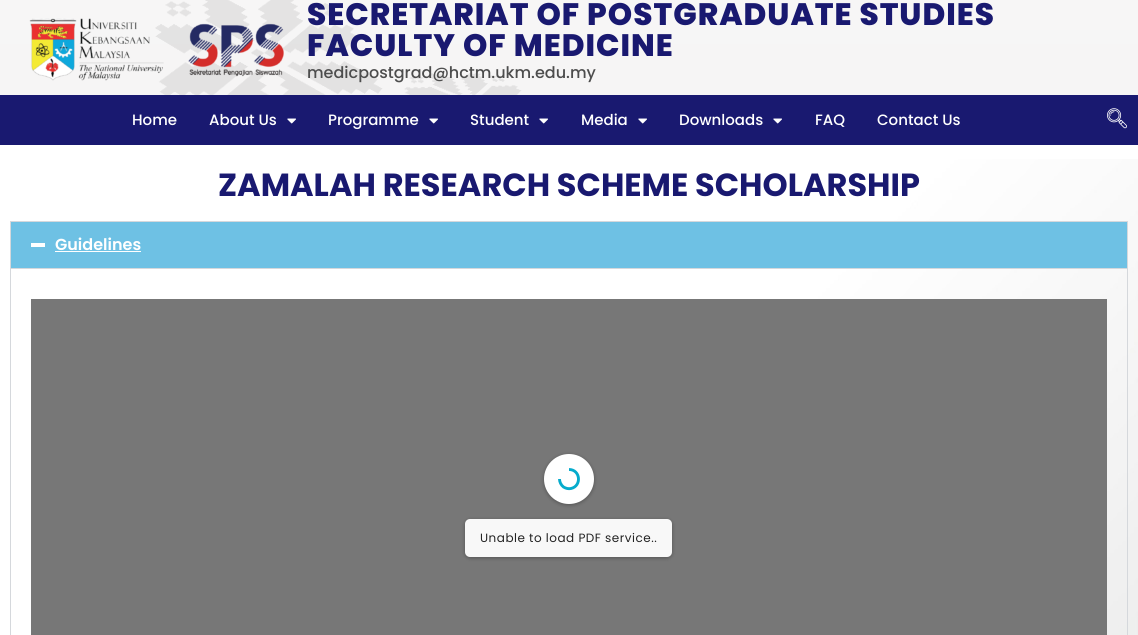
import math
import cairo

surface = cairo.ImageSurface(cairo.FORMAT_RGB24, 1138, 635)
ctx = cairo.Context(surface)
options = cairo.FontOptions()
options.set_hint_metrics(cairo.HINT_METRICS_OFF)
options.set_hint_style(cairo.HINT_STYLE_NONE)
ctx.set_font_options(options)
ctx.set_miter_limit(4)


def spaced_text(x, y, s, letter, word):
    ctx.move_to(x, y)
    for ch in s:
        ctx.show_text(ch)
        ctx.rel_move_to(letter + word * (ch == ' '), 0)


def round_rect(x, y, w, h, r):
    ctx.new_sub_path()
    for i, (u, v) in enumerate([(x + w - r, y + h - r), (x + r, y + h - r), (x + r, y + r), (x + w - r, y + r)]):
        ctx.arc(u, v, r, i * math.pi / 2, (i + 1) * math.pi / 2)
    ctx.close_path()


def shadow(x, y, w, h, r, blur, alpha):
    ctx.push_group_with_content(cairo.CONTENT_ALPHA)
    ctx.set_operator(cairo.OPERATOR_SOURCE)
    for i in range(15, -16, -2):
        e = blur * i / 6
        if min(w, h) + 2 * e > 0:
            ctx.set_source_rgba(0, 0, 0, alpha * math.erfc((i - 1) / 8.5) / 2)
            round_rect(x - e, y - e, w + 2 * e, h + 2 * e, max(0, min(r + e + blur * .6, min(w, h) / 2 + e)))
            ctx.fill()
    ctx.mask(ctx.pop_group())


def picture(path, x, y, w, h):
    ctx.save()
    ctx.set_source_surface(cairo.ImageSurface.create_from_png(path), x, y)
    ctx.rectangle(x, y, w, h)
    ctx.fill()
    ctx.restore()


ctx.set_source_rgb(1, 1, 1)
ctx.paint()
picture("img1.png", 0, 0, 1138, 95)
picture("img2.png", 29, 18, 255, 63)
ctx.select_font_face("Poppins ExtraBold")
ctx.set_font_size(31)
ctx.set_source_rgb(0.098, 0.098, 0.439)
spaced_text(307, 25, "SECRETARIAT OF POSTGRADUATE STUDIES", 1, 0)
spaced_text(307, 56, "FACULTY OF MEDICINE", 1, 0)
ctx.select_font_face("Poppins Medium")
ctx.set_font_size(16)
ctx.set_source_rgb(0.302, 0.302, 0.302)
ctx.move_to(307, 78)
ctx.show_text("medicpostgrad@hctm.ukm.edu.my")
ctx.set_source_rgb(0.098, 0.098, 0.439)
ctx.rectangle(0, 95, 1138, 50)
ctx.fill()
ctx.set_font_size(15)
ctx.set_source_rgb(1, 1, 1)
ctx.move_to(132, 125)
ctx.show_text("Home")
ctx.move_to(209, 125)
ctx.show_text("About Us")
picture("img3.png", 287, 118, 9, 6)
ctx.move_to(328, 125)
ctx.show_text("Programme")
picture("img3.png", 429, 118, 9, 6)
ctx.move_to(470, 125)
ctx.show_text("Student")
picture("img3.png", 539, 118, 9, 6)
ctx.move_to(581, 125)
ctx.show_text("Media")
picture("img3.png", 638, 118, 9, 6)
ctx.move_to(679, 125)
ctx.show_text("Downloads")
picture("img3.png", 773, 118, 9, 6)
ctx.move_to(815, 125)
ctx.show_text("FAQ")
ctx.move_to(877, 125)
ctx.show_text("Contact Us")
picture("img4.png", 1107, 108, 20, 21)
picture("img5.png", 41, 159, 1097, 476)
ctx.select_font_face("Poppins", cairo.FONT_SLANT_NORMAL, cairo.FONT_WEIGHT_BOLD)
ctx.set_font_size(32)
ctx.set_source_rgb(0.098, 0.098, 0.439)
ctx.move_to(218, 196)
ctx.show_text("ZAMALAH RESEARCH SCHEME SCHOLARSHIP")
ctx.rectangle(10.5, 221.5, 1117, 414)
ctx.set_source_rgb(0.835, 0.847, 0.863)
ctx.set_line_width(1)
ctx.stroke()
ctx.set_source_rgb(0.431, 0.757, 0.894)
ctx.rectangle(11, 222, 1116, 46)
ctx.fill()
ctx.set_source_rgb(1, 1, 1)
ctx.rectangle(31, 243, 14, 4)
ctx.fill()
ctx.select_font_face("Poppins SemiBold")
ctx.set_font_size(16)
ctx.move_to(55, 250)
ctx.show_text("Guidelines")
ctx.rectangle(55, 251, 86, 1)
ctx.fill()
ctx.set_source_rgb(0.835, 0.847, 0.863)
ctx.rectangle(11, 268, 1116, 1)
ctx.fill()
ctx.set_source_rgb(0.467, 0.467, 0.467)
ctx.rectangle(31, 299, 1076, 336)
ctx.fill()
ctx.set_source_rgb(0, 0, 0)
shadow(544, 455, 50, 50, 25, 2, 0.3)
ctx.set_source_rgb(1, 1, 1)
ctx.arc(569, 479, 25, 0, 2 * math.pi)
ctx.fill()
ctx.new_path()
ctx.move_to(569, 469.5)
ctx.curve_to(580.5, 469.5, 582, 486, 571, 488.5)
ctx.curve_to(568.5, 489, 566, 488.5, 563.5, 487)
ctx.curve_to(561, 485, 559.5, 482, 559.5, 479)
ctx.set_source_rgb(0.027, 0.671, 0.8)
ctx.set_line_width(2.9)
ctx.stroke()
ctx.set_source_rgb(0, 0, 0)
shadow(465, 520, 207, 38, 5, 2, 0.3)
ctx.set_source_rgb(0.969, 0.969, 0.969)
round_rect(465, 519, 207, 38, 5)
ctx.fill()
ctx.select_font_face("Poppins")
ctx.set_font_size(12)
ctx.set_source_rgb(0.133, 0.133, 0.133)
spaced_text(480, 542, "Unable to load PDF service..", 0.5, 0)
surface.write_to_png("page.png")
